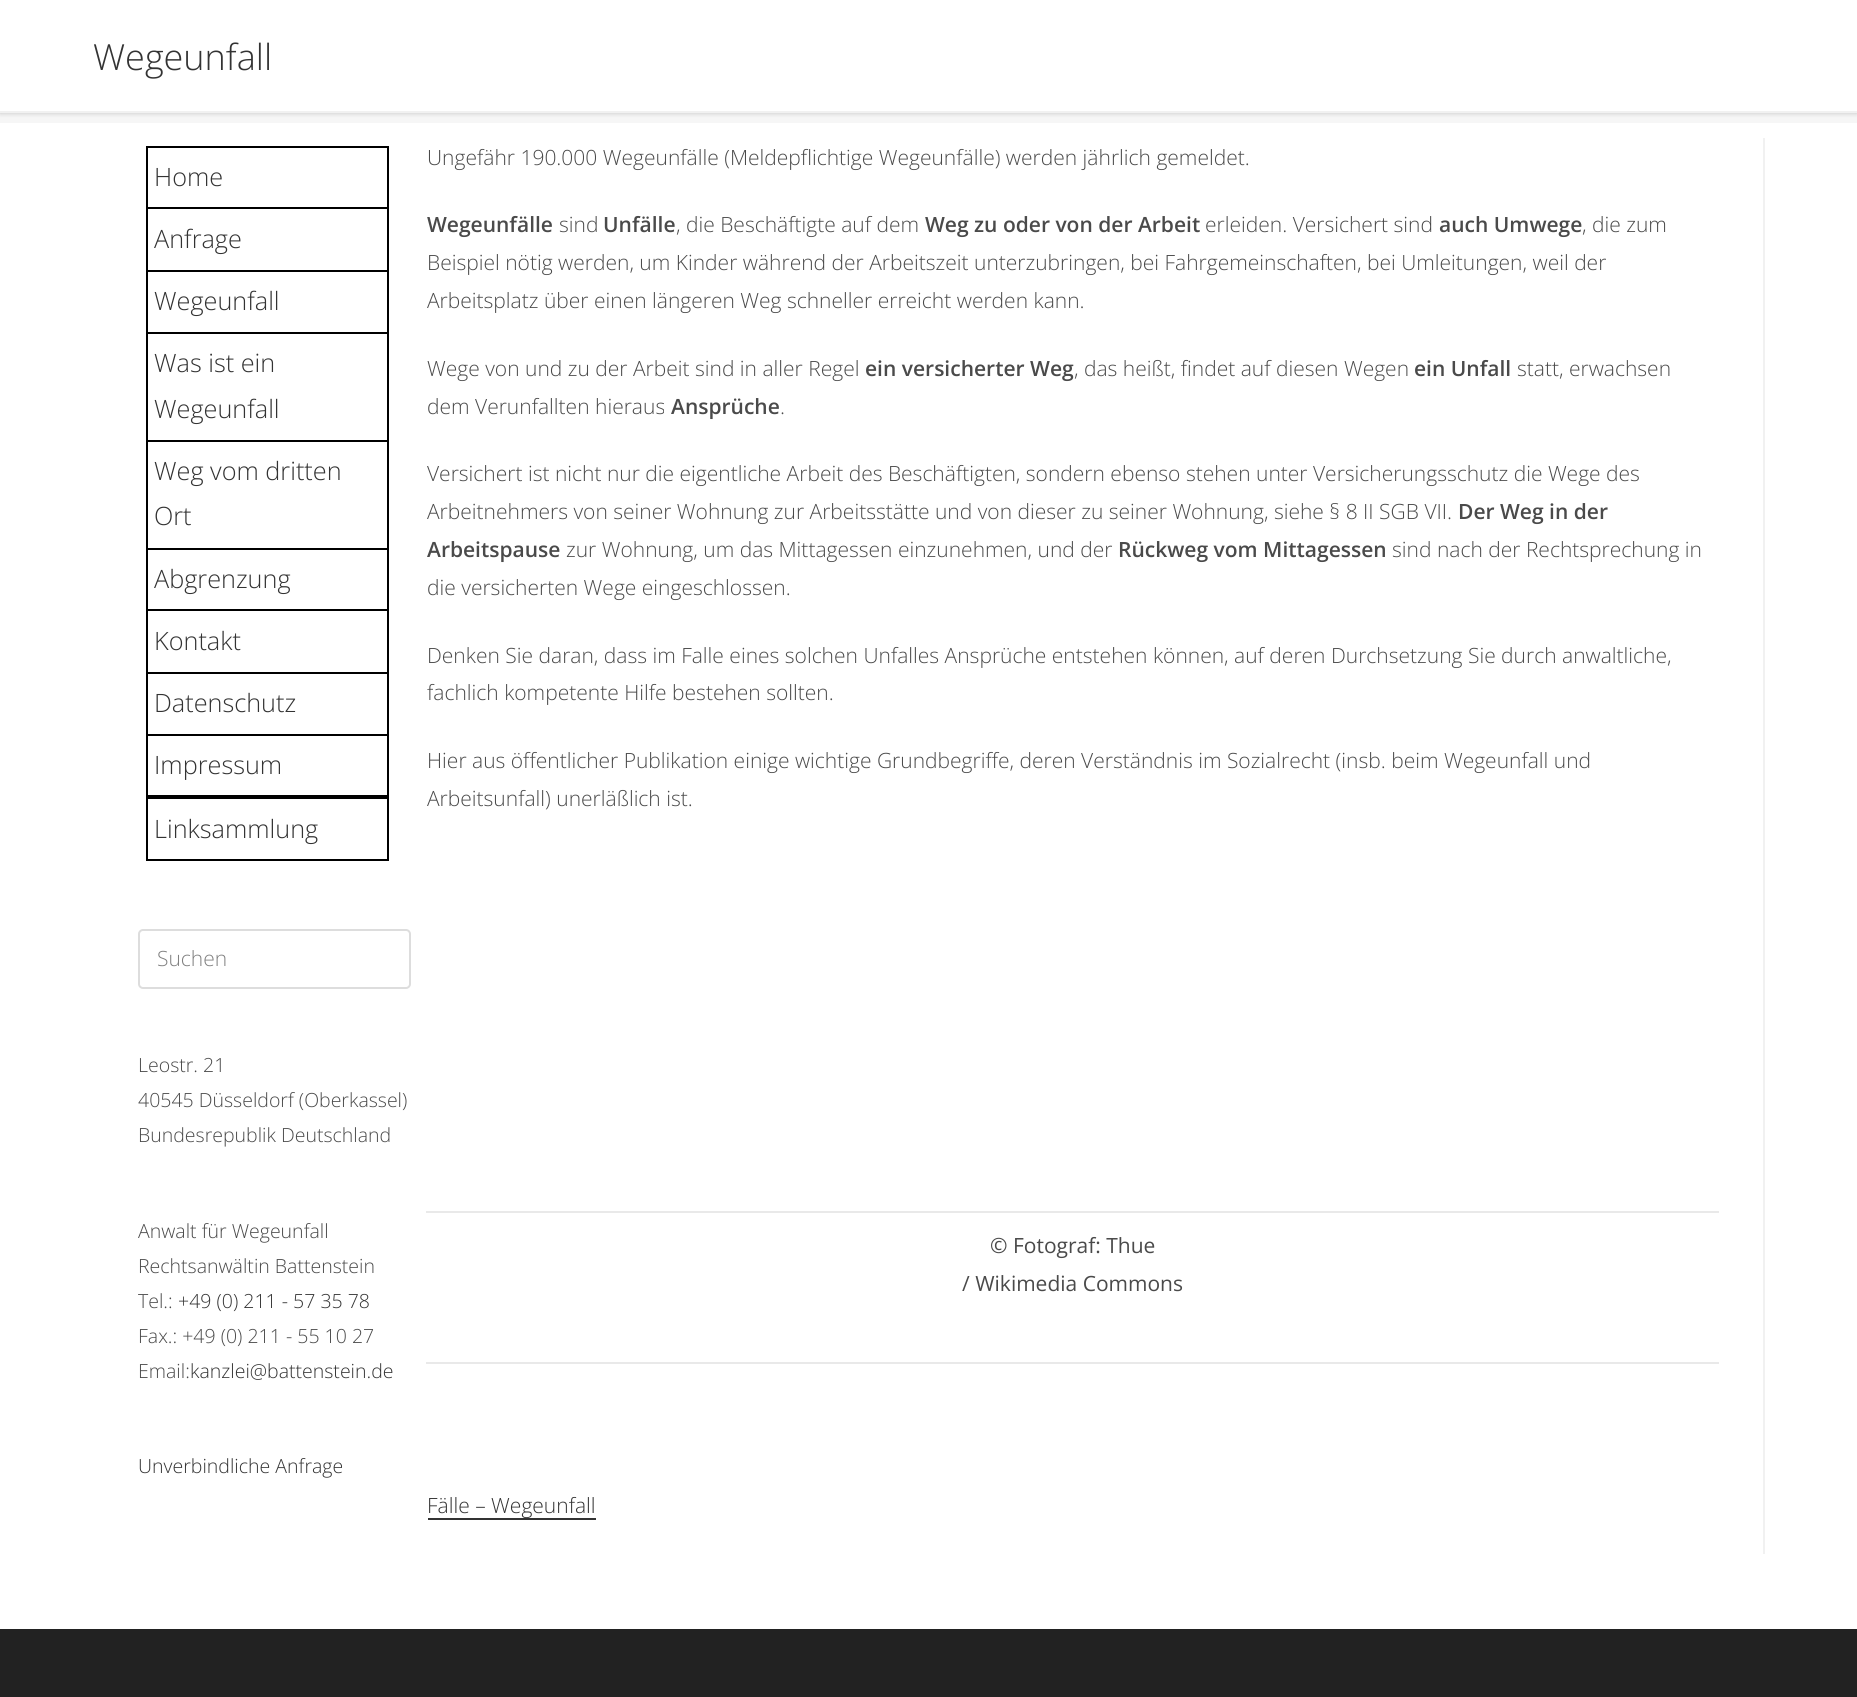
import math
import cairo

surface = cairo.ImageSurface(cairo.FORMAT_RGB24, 1857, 1697)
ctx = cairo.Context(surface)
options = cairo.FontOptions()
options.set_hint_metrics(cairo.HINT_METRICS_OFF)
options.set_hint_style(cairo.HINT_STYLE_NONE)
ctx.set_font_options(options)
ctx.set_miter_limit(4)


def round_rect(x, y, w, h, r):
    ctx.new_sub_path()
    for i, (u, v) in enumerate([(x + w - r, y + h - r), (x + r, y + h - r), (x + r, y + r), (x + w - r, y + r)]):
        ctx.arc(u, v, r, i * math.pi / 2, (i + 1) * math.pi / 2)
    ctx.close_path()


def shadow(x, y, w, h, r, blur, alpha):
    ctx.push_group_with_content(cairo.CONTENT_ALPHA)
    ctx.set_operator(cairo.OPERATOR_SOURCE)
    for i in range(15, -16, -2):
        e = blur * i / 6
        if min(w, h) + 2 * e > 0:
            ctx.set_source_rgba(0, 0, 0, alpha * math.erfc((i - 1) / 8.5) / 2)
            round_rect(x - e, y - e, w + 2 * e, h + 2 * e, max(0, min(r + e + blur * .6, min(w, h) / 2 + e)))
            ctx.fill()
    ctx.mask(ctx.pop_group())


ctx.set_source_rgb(1, 1, 1)
ctx.paint()
ctx.set_source_rgb(0.961, 0.961, 0.961)
ctx.rectangle(0, 113, 1857, 10)
ctx.fill()
ctx.set_source_rgb(0.196, 0.196, 0.196)
shadow(0, 2, 1857, 112, 0, 2, 0.2)
ctx.set_source_rgb(1, 1, 1)
ctx.rectangle(0, 0, 1857, 111)
ctx.fill()
ctx.set_source_rgb(0.945, 0.945, 0.945)
ctx.rectangle(0, 111, 1857, 2)
ctx.fill()
ctx.select_font_face("Open Sans Light")
ctx.set_font_size(36)
ctx.set_source_rgb(0.2, 0.2, 0.2)
ctx.move_to(93, 70)
ctx.show_text("Wegeunfall")
ctx.rectangle(147, 147, 241, 61)
ctx.set_source_rgb(0, 0, 0)
ctx.stroke()
ctx.set_font_size(25.25)
ctx.set_source_rgb(0.2, 0.2, 0.2)
ctx.move_to(154, 186)
ctx.show_text("Home")
ctx.set_source_rgb(0, 0, 0)
ctx.rectangle(387, 209, 2, 124)
ctx.fill()
ctx.rectangle(146, 270, 243, 2)
ctx.fill()
ctx.rectangle(146, 209, 2, 63)
ctx.fill()
ctx.set_source_rgb(0.2, 0.2, 0.2)
ctx.move_to(154, 248)
ctx.show_text("Anfrage")
ctx.set_source_rgb(0, 0, 0)
ctx.rectangle(146, 332, 243, 2)
ctx.fill()
ctx.rectangle(146, 272, 2, 61)
ctx.fill()
ctx.set_source_rgb(0.2, 0.2, 0.2)
ctx.move_to(154, 310)
ctx.show_text("Wegeunfall")
ctx.set_source_rgb(0, 0, 0)
ctx.rectangle(387, 333, 2, 108)
ctx.fill()
ctx.rectangle(146, 440, 243, 2)
ctx.fill()
ctx.rectangle(146, 333, 2, 108)
ctx.fill()
ctx.set_source_rgb(0.2, 0.2, 0.2)
ctx.move_to(154, 372)
ctx.show_text("Was ist ein")
ctx.move_to(154, 418)
ctx.show_text("Wegeunfall")
ctx.set_source_rgb(0, 0, 0)
ctx.rectangle(387, 441, 2, 108)
ctx.fill()
ctx.rectangle(146, 548, 243, 2)
ctx.fill()
ctx.rectangle(146, 441, 2, 108)
ctx.fill()
ctx.set_source_rgb(0.2, 0.2, 0.2)
ctx.move_to(154, 480)
ctx.show_text("Weg vom dritten")
ctx.move_to(154, 525)
ctx.show_text("Ort")
ctx.set_source_rgb(0, 0, 0)
ctx.rectangle(387, 549, 2, 186)
ctx.fill()
ctx.rectangle(146, 609, 243, 2)
ctx.fill()
ctx.rectangle(146, 549, 2, 62)
ctx.fill()
ctx.set_source_rgb(0.2, 0.2, 0.2)
ctx.move_to(154, 588)
ctx.show_text("Abgrenzung")
ctx.set_source_rgb(0, 0, 0)
ctx.rectangle(146, 672, 243, 2)
ctx.fill()
ctx.rectangle(146, 611, 2, 63)
ctx.fill()
ctx.set_source_rgb(0.2, 0.2, 0.2)
ctx.move_to(154, 650)
ctx.show_text("Kontakt")
ctx.set_source_rgb(0, 0, 0)
ctx.rectangle(146, 734, 243, 2)
ctx.fill()
ctx.rectangle(146, 674, 2, 61)
ctx.fill()
ctx.set_source_rgb(0.2, 0.2, 0.2)
ctx.move_to(154, 712)
ctx.show_text("Datenschutz")
ctx.set_source_rgb(0, 0, 0)
ctx.rectangle(387, 735, 2, 62)
ctx.fill()
ctx.rectangle(146, 795, 243, 2)
ctx.fill()
ctx.rectangle(146, 735, 2, 62)
ctx.fill()
ctx.set_source_rgb(0.2, 0.2, 0.2)
ctx.move_to(154, 774)
ctx.show_text("Impressum")
ctx.rectangle(147, 798, 241, 62)
ctx.set_source_rgb(0, 0, 0)
ctx.stroke()
ctx.set_source_rgb(0.2, 0.2, 0.2)
ctx.move_to(154, 838)
ctx.show_text("Linksammlung")
round_rect(139, 930, 271, 58, 4)
ctx.set_source_rgb(0.867, 0.867, 0.867)
ctx.stroke()
ctx.set_font_size(21)
ctx.set_source_rgb(0.502, 0.502, 0.502)
ctx.move_to(157, 966)
ctx.show_text("Suchen")
ctx.set_font_size(19.5)
ctx.set_source_rgb(0.29, 0.29, 0.29)
ctx.move_to(138, 1072)
ctx.show_text("Leostr. 21")
ctx.move_to(138, 1107)
ctx.show_text("40545 Düsseldorf (Oberkassel)")
ctx.move_to(138, 1142)
ctx.show_text("Bundesrepublik Deutschland")
ctx.move_to(138, 1238)
ctx.show_text("Anwalt für Wegeunfall")
ctx.move_to(138, 1273)
ctx.show_text("Rechtsanwältin Battenstein")
ctx.move_to(138, 1308)
ctx.show_text("Tel.:")
ctx.set_source_rgb(0.2, 0.2, 0.2)
ctx.move_to(178, 1308)
ctx.show_text("+49 (0) 211 - 57 35 78")
ctx.set_source_rgb(0.29, 0.29, 0.29)
ctx.move_to(138, 1343)
ctx.show_text("Fax.: +49 (0) 211 - 55 10 27")
ctx.move_to(138, 1378)
ctx.show_text("Email:")
ctx.set_source_rgb(0.2, 0.2, 0.2)
ctx.move_to(190, 1378)
ctx.show_text("kanzlei@battenstein.de")
ctx.move_to(138, 1473)
ctx.show_text("Unverbindliche Anfrage")
ctx.set_source_rgb(0.945, 0.945, 0.945)
ctx.rectangle(1763, 138, 2, 1416)
ctx.fill()
ctx.set_font_size(21)
ctx.set_source_rgb(0.29, 0.29, 0.29)
ctx.move_to(427, 165)
ctx.show_text("Ungefähr 190.000 Wegeunfälle (Meldepflichtige Wegeunfälle) werden jährlich gemeldet.")
ctx.select_font_face("Open Sans SemiBold")
ctx.move_to(427, 232)
ctx.show_text("Wegeunfälle")
ctx.select_font_face("Open Sans Light")
ctx.move_to(559, 232)
ctx.show_text("sind")
ctx.select_font_face("Open Sans SemiBold")
ctx.move_to(603, 232)
ctx.show_text("Unfälle")
ctx.select_font_face("Open Sans Light")
ctx.move_to(676, 232)
ctx.show_text(", die Beschäftigte auf dem")
ctx.select_font_face("Open Sans SemiBold")
ctx.move_to(925, 232)
ctx.show_text("Weg zu oder von der Arbeit")
ctx.select_font_face("Open Sans Light")
ctx.move_to(1205, 232)
ctx.show_text("erleiden. Versichert sind")
ctx.select_font_face("Open Sans SemiBold")
ctx.move_to(1439, 232)
ctx.show_text("auch Umwege")
ctx.select_font_face("Open Sans Light")
ctx.move_to(1582, 232)
ctx.show_text(", die zum")
ctx.move_to(427, 270)
ctx.show_text("Beispiel nötig werden, um Kinder während der Arbeitszeit unterzubringen, bei Fahrgemeinschaften, bei Umleitungen, weil der")
ctx.move_to(427, 308)
ctx.show_text("Arbeitsplatz über einen längeren Weg schneller erreicht werden kann.")
ctx.move_to(427, 376)
ctx.show_text("Wege von und zu der Arbeit sind in aller Regel")
ctx.select_font_face("Open Sans SemiBold")
ctx.move_to(865, 376)
ctx.show_text("ein versicherter Weg")
ctx.select_font_face("Open Sans Light")
ctx.move_to(1074, 376)
ctx.show_text(", das heißt, findet auf diesen Wegen")
ctx.select_font_face("Open Sans SemiBold")
ctx.move_to(1414, 376)
ctx.show_text("ein Unfall")
ctx.select_font_face("Open Sans Light")
ctx.move_to(1517, 376)
ctx.show_text("statt, erwachsen")
ctx.move_to(427, 414)
ctx.show_text("dem Verunfallten hieraus")
ctx.select_font_face("Open Sans SemiBold")
ctx.move_to(671, 414)
ctx.show_text("Ansprüche")
ctx.select_font_face("Open Sans Light")
ctx.move_to(780, 414)
ctx.show_text(".")
ctx.move_to(427, 481)
ctx.show_text("Versichert ist nicht nur die eigentliche Arbeit des Beschäftigten, sondern ebenso stehen unter Versicherungsschutz die Wege des")
ctx.move_to(427, 519)
ctx.show_text("Arbeitnehmers von seiner Wohnung zur Arbeitsstätte und von dieser zu seiner Wohnung, siehe § 8 II SGB VII.")
ctx.select_font_face("Open Sans SemiBold")
ctx.move_to(1458, 519)
ctx.show_text("Der Weg in der")
ctx.move_to(427, 557)
ctx.show_text("Arbeitspause")
ctx.select_font_face("Open Sans Light")
ctx.move_to(566, 557)
ctx.show_text("zur Wohnung, um das Mittagessen einzunehmen, und der")
ctx.select_font_face("Open Sans SemiBold")
ctx.move_to(1118, 557)
ctx.show_text("Rückweg vom Mittagessen")
ctx.select_font_face("Open Sans Light")
ctx.move_to(1392, 557)
ctx.show_text("sind nach der Rechtsprechung in")
ctx.move_to(427, 595)
ctx.show_text("die versicherten Wege eingeschlossen.")
ctx.move_to(427, 663)
ctx.show_text("Denken Sie daran, dass im Falle eines solchen Unfalles Ansprüche entstehen können, auf deren Durchsetzung Sie durch anwaltliche,")
ctx.move_to(427, 700)
ctx.show_text("fachlich kompetente Hilfe bestehen sollten.")
ctx.move_to(427, 768)
ctx.show_text("Hier aus öffentlicher Publikation einige wichtige Grundbegriffe, deren Verständnis im Sozialrecht (insb. beim Wegeunfall und")
ctx.move_to(427, 806)
ctx.show_text("Arbeitsunfall) unerläßlich ist.")
ctx.set_source_rgb(0.914, 0.914, 0.914)
ctx.rectangle(426, 1211, 1293, 2)
ctx.fill()
ctx.rectangle(426, 1362, 1293, 2)
ctx.fill()
ctx.select_font_face("Open Sans")
ctx.set_source_rgb(0.29, 0.29, 0.29)
ctx.move_to(990, 1253)
ctx.show_text("© Fotograf: Thue")
ctx.move_to(962, 1291)
ctx.show_text("/ Wikimedia Commons")
ctx.set_source_rgb(0.2, 0.2, 0.2)
ctx.rectangle(428, 1518, 168, 2)
ctx.fill()
ctx.select_font_face("Open Sans Light")
ctx.move_to(427, 1513)
ctx.show_text("Fälle – Wegeunfall")
ctx.set_source_rgb(0.133, 0.133, 0.133)
ctx.rectangle(0, 1629, 1857, 68)
ctx.fill()
surface.write_to_png("page.png")
